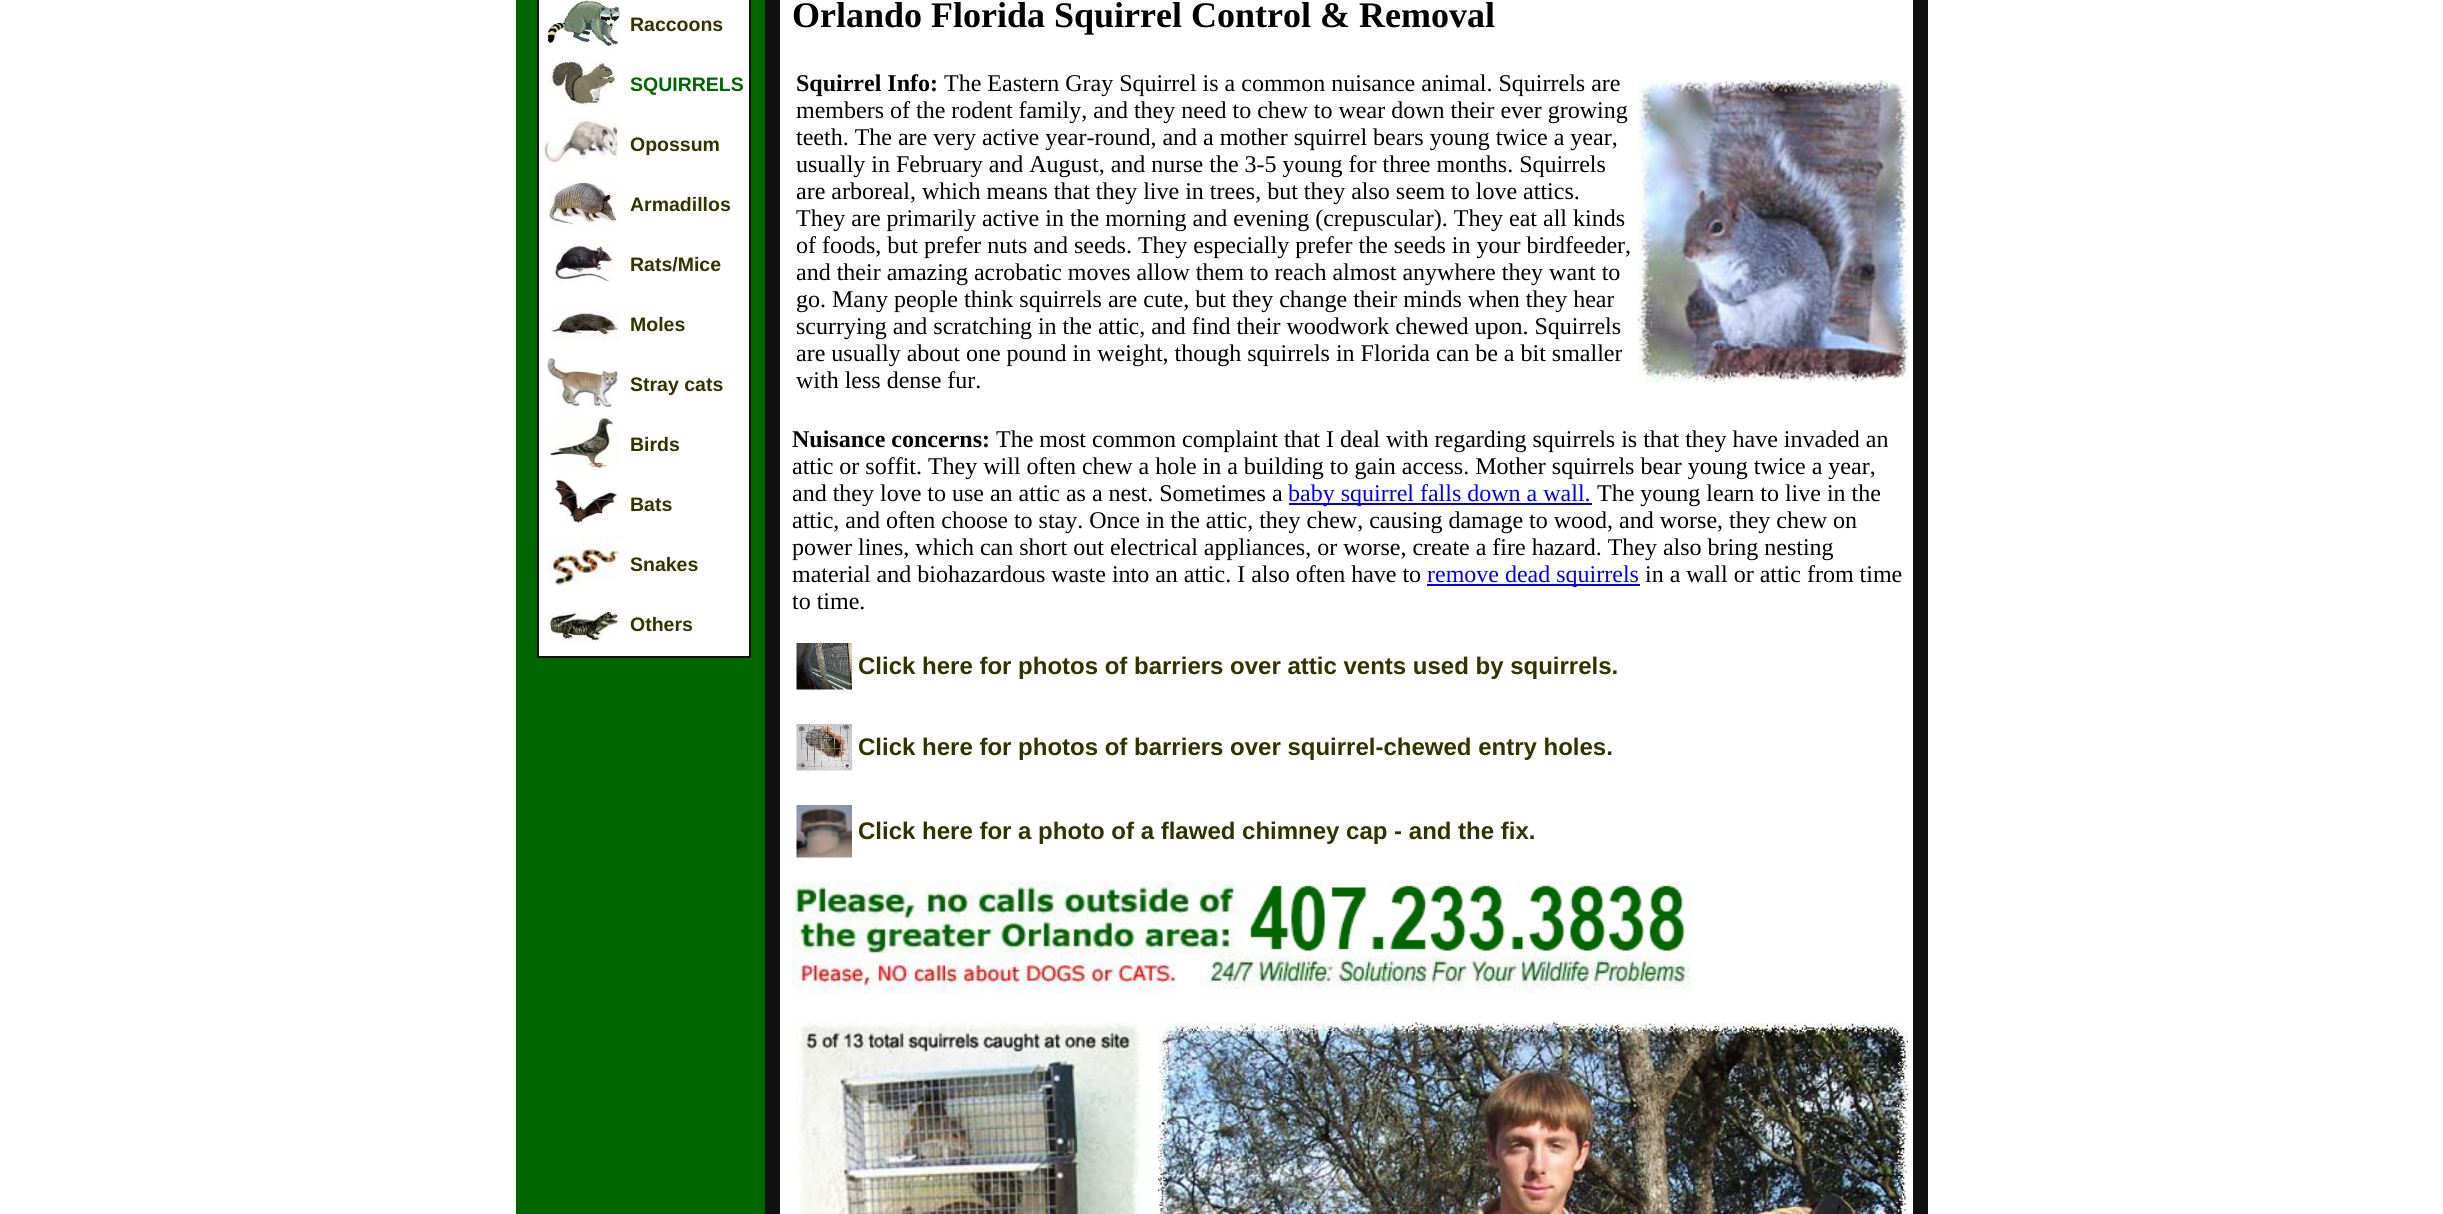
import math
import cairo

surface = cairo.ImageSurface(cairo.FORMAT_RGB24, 2443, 1214)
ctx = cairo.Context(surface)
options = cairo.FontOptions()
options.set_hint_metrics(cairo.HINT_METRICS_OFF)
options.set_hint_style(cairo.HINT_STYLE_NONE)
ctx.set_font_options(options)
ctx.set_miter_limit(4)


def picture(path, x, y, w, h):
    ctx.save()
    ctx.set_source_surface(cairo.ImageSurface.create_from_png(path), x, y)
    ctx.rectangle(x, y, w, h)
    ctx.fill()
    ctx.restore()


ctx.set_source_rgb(1, 1, 1)
ctx.paint()
ctx.set_source_rgb(0, 0.4, 0)
ctx.rectangle(537, 658, 213, 556)
ctx.fill()
ctx.rectangle(750, 0, 15, 1214)
ctx.fill()
ctx.set_source_rgb(0.067, 0.067, 0.067)
ctx.rectangle(749, 0, 2, 657)
ctx.fill()
ctx.rectangle(537, 656, 213, 2)
ctx.fill()
ctx.rectangle(537, 0, 2, 657)
ctx.fill()
picture("img1.png", 544, 1, 77, 50)
ctx.select_font_face("Liberation Sans", cairo.FONT_SLANT_NORMAL, cairo.FONT_WEIGHT_BOLD)
ctx.set_font_size(19.5)
ctx.set_source_rgb(0.2, 0.2, 0)
ctx.move_to(630, 31)
ctx.show_text("Raccoons")
picture("img2.png", 548, 61, 69, 49)
ctx.set_source_rgb(0, 0.4, 0)
ctx.move_to(630, 91)
ctx.show_text("SQUIRRELS")
picture("img3.png", 543, 116, 76, 53)
ctx.set_source_rgb(0.2, 0.2, 0)
ctx.move_to(630, 151)
ctx.show_text("Opossum")
picture("img4.png", 547, 181, 72, 47)
ctx.move_to(630, 211)
ctx.show_text("Armadillos")
picture("img5.png", 553, 244, 61, 42)
ctx.move_to(630, 271)
ctx.show_text("Rats/Mice")
picture("img6.png", 550, 310, 70, 31)
ctx.move_to(630, 331)
ctx.show_text("Moles")
picture("img7.png", 543, 356, 80, 54)
ctx.move_to(630, 391)
ctx.show_text("Stray cats")
picture("img8.png", 549, 416, 72, 55)
ctx.move_to(630, 451)
ctx.show_text("Birds")
picture("img9.png", 554, 476, 65, 47)
ctx.move_to(630, 511)
ctx.show_text("Bats")
picture("img10.png", 543, 536, 81, 50)
ctx.move_to(630, 571)
ctx.show_text("Snakes")
picture("img11.png", 543, 610, 77, 33)
ctx.move_to(630, 631)
ctx.show_text("Others")
ctx.set_source_rgb(0, 0.4, 0)
ctx.rectangle(516, 0, 21, 1214)
ctx.fill()
ctx.set_source_rgb(0.067, 0.067, 0.067)
ctx.rectangle(1913, 0, 15, 1214)
ctx.fill()
ctx.rectangle(765, 0, 15, 1214)
ctx.fill()
ctx.select_font_face("Liberation Serif", cairo.FONT_SLANT_NORMAL, cairo.FONT_WEIGHT_BOLD)
ctx.set_font_size(36)
ctx.set_source_rgb(0, 0, 0)
ctx.move_to(792, 27)
ctx.show_text("Orlando Florida Squirrel Control & Removal")
ctx.set_font_size(24)
ctx.move_to(796, 91)
ctx.show_text("Squirrel Info:")
ctx.select_font_face("Liberation Serif")
ctx.move_to(944, 91)
ctx.show_text("The Eastern Gray Squirrel is a common nuisance animal. Squirrels are")
ctx.move_to(796, 118)
ctx.show_text("members of the rodent family, and they need to chew to wear down their ever growing")
ctx.move_to(796, 145)
ctx.show_text("teeth. The are very active year-round, and a mother squirrel bears young twice a year,")
ctx.move_to(796, 172)
ctx.show_text("usually in February and August, and nurse the 3-5 young for three months. Squirrels")
ctx.move_to(796, 199)
ctx.show_text("are arboreal, which means that they live in trees, but they also seem to love attics.")
ctx.move_to(796, 226)
ctx.show_text("They are primarily active in the morning and evening (crepuscular). They eat all kinds")
ctx.move_to(796, 253)
ctx.show_text("of foods, but prefer nuts and seeds. They especially prefer the seeds in your birdfeeder,")
ctx.move_to(796, 280)
ctx.show_text("and their amazing acrobatic moves allow them to reach almost anywhere they want to")
ctx.move_to(796, 307)
ctx.show_text("go. Many people think squirrels are cute, but they change their minds when they hear")
ctx.move_to(796, 334)
ctx.show_text("scurrying and scratching in the attic, and find their woodwork chewed upon. Squirrels")
ctx.move_to(796, 361)
ctx.show_text("are usually about one pound in weight, though squirrels in Florida can be a bit smaller")
ctx.move_to(796, 388)
ctx.show_text("with less dense fur.")
picture("img12.png", 1638, 80, 270, 302)
ctx.select_font_face("Liberation Serif", cairo.FONT_SLANT_NORMAL, cairo.FONT_WEIGHT_BOLD)
ctx.move_to(792, 447)
ctx.show_text("Nuisance concerns:")
ctx.select_font_face("Liberation Serif")
ctx.move_to(996, 447)
ctx.show_text("The most common complaint that I deal with regarding squirrels is that they have invaded an")
ctx.move_to(792, 474)
ctx.show_text("attic or soffit. They will often chew a hole in a building to gain access. Mother squirrels bear young twice a year,")
ctx.move_to(792, 501)
ctx.show_text("and they love to use an attic as a nest. Sometimes a")
ctx.set_source_rgb(0, 0, 0.933)
ctx.rectangle(1289, 503, 303, 2)
ctx.fill()
ctx.move_to(1288, 501)
ctx.show_text("baby squirrel falls down a wall.")
ctx.set_source_rgb(0, 0, 0)
ctx.move_to(1597, 501)
ctx.show_text("The young learn to live in the")
ctx.move_to(792, 528)
ctx.show_text("attic, and often choose to stay. Once in the attic, they chew, causing damage to wood, and worse, they chew on")
ctx.move_to(792, 555)
ctx.show_text("power lines, which can short out electrical appliances, or worse, create a fire hazard. They also bring nesting")
ctx.move_to(792, 582)
ctx.show_text("material and biohazardous waste into an attic. I also often have to")
ctx.set_source_rgb(0, 0, 0.933)
ctx.rectangle(1427, 584, 213, 2)
ctx.fill()
ctx.move_to(1427, 582)
ctx.show_text("remove dead squirrels")
ctx.set_source_rgb(0, 0, 0)
ctx.move_to(1645, 582)
ctx.show_text("in a wall or attic from time")
ctx.move_to(792, 609)
ctx.show_text("to time.")
picture("img13.png", 796, 643, 56, 47)
ctx.select_font_face("Liberation Sans", cairo.FONT_SLANT_NORMAL, cairo.FONT_WEIGHT_BOLD)
ctx.set_source_rgb(0.2, 0.2, 0)
ctx.move_to(858, 674)
ctx.show_text("Click here for photos of barriers over attic vents used by squirrels.")
picture("img14.png", 796, 724, 56, 47)
ctx.move_to(858, 755)
ctx.show_text("Click here for photos of barriers over squirrel-chewed entry holes.")
picture("img15.png", 796, 805, 56, 53)
ctx.move_to(858, 839)
ctx.show_text("Click here for a photo of a flawed chimney cap - and the fix.")
picture("img16.png", 792, 881, 900, 113)
picture("img17.png", 796, 1022, 344, 192)
picture("img18.png", 1158, 1022, 750, 192)
surface.write_to_png("page.png")
